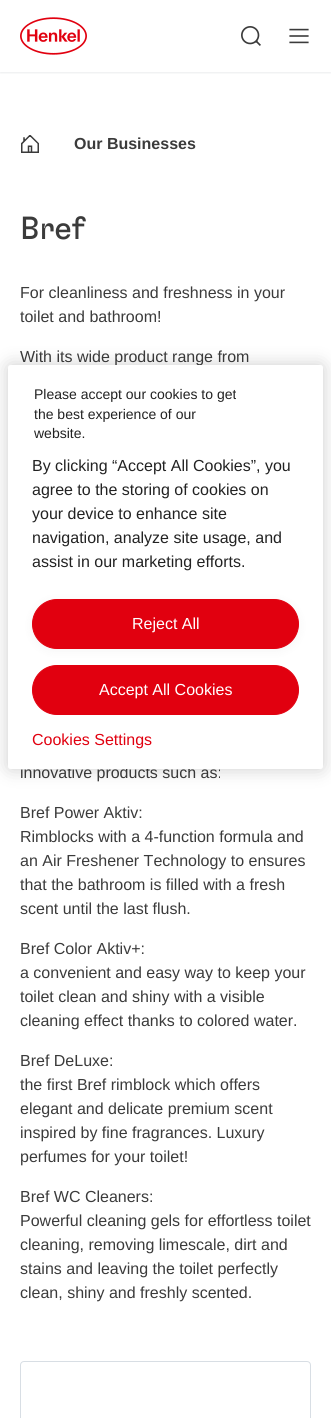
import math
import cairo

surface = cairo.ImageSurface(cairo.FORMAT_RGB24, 331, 1418)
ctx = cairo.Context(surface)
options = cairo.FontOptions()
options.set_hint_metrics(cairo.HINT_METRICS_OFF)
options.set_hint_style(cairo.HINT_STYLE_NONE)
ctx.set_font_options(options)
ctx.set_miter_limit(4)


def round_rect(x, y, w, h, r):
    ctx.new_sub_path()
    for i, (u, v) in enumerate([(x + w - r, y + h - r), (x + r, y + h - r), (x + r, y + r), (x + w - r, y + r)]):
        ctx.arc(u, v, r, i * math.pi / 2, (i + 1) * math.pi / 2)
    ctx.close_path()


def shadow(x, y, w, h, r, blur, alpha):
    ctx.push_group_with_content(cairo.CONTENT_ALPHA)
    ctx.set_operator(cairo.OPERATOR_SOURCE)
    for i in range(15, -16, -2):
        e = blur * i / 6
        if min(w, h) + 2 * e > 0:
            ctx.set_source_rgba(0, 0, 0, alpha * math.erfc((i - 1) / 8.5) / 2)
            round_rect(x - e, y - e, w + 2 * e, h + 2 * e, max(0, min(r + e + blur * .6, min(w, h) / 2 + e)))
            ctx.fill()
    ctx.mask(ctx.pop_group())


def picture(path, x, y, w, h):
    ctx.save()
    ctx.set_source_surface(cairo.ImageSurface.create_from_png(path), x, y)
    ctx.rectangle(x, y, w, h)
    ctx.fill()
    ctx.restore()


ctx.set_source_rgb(1, 1, 1)
ctx.paint()
ctx.save()
ctx.rectangle(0, 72, 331, 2)
ctx.clip()
ctx.set_source_rgb(0.471, 0.529, 0.569)
shadow(0, 1, 331, 72, 0, 1, 0.15)
ctx.restore()
picture("img1.png", 20, 17, 67, 38)
picture("img2.png", 241, 26, 20, 20)
picture("img3.png", 289, 28, 20, 16)
picture("img4.png", 21, 135, 18, 18)
ctx.select_font_face("Liberation Sans", cairo.FONT_SLANT_NORMAL, cairo.FONT_WEIGHT_BOLD)
ctx.set_font_size(16)
ctx.set_source_rgb(0.231, 0.231, 0.231)
ctx.move_to(74, 149)
ctx.show_text("Our Businesses")
ctx.select_font_face("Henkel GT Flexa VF")
ctx.set_font_size(32)
ctx.move_to(20, 239)
ctx.show_text("Bref")
ctx.select_font_face("Liberation Sans")
ctx.set_font_size(16)
ctx.move_to(20, 298)
ctx.show_text("For cleanliness and freshness in your")
ctx.move_to(20, 322)
ctx.show_text("toilet and bathroom!")
ctx.move_to(20, 362)
ctx.show_text("With its wide product range from")
ctx.move_to(20, 778)
ctx.show_text("innovative products such as:")
ctx.move_to(20, 818)
ctx.show_text("Bref Power Aktiv:")
ctx.move_to(20, 842)
ctx.show_text("Rimblocks with a 4-function formula and")
ctx.move_to(20, 866)
ctx.show_text("an Air Freshener Technology to ensures")
ctx.move_to(20, 890)
ctx.show_text("that the bathroom is filled with a fresh")
ctx.move_to(20, 914)
ctx.show_text("scent until the last flush.")
ctx.move_to(20, 954)
ctx.show_text("Bref Color Aktiv+:")
ctx.move_to(20, 978)
ctx.show_text("a convenient and easy way to keep your")
ctx.move_to(20, 1002)
ctx.show_text("toilet clean and shiny with a visible")
ctx.move_to(20, 1026)
ctx.show_text("cleaning effect thanks to colored water.")
ctx.move_to(20, 1066)
ctx.show_text("Bref DeLuxe:")
ctx.move_to(20, 1090)
ctx.show_text("the first Bref rimblock which offers")
ctx.move_to(20, 1114)
ctx.show_text("elegant and delicate premium scent")
ctx.move_to(20, 1138)
ctx.show_text("inspired by fine fragrances. Luxury")
ctx.move_to(20, 1162)
ctx.show_text("perfumes for your toilet!")
ctx.move_to(20, 1202)
ctx.show_text("Bref WC Cleaners:")
ctx.move_to(20, 1226)
ctx.show_text("Powerful cleaning gels for effortless toilet")
ctx.move_to(20, 1250)
ctx.show_text("cleaning, removing limescale, dirt and")
ctx.move_to(20, 1274)
ctx.show_text("stains and leaving the toilet perfectly")
ctx.move_to(20, 1298)
ctx.show_text("clean, shiny and freshly scented.")
round_rect(20.5, 1361.5, 290, 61, 3.5)
ctx.set_source_rgb(0.847, 0.871, 0.894)
ctx.set_line_width(1)
ctx.stroke()
ctx.set_source_rgb(0, 0, 0)
shadow(8, 365, 315, 404, 2.5, 9, 0.2)
ctx.set_source_rgb(1, 1, 1)
round_rect(8, 365, 315, 404, 2.5)
ctx.fill()
ctx.set_font_size(14)
ctx.set_source_rgb(0.133, 0.133, 0.133)
ctx.move_to(34, 399)
ctx.show_text("Please accept our cookies to get")
ctx.move_to(34, 419)
ctx.show_text("the best experience of our")
ctx.move_to(34, 438)
ctx.show_text("website.")
ctx.set_font_size(16)
ctx.move_to(32, 471)
ctx.show_text("By clicking “Accept All Cookies”, you")
ctx.move_to(32, 495)
ctx.show_text("agree to the storing of cookies on")
ctx.move_to(32, 519)
ctx.show_text("your device to enhance site")
ctx.move_to(32, 543)
ctx.show_text("navigation, analyze site usage, and")
ctx.move_to(32, 567)
ctx.show_text("assist in our marketing efforts.")
ctx.set_source_rgb(0, 0, 0)
shadow(32, 601, 267, 50, 25, 6, 0.04)
ctx.set_source_rgb(0.882, 0, 0.059)
round_rect(32.5, 599.5, 266, 49, 24.5)
ctx.fill_preserve()
ctx.stroke()
ctx.set_source_rgb(1, 1, 1)
ctx.move_to(132, 629)
ctx.show_text("Reject All")
ctx.set_source_rgb(0.882, 0, 0.059)
round_rect(32.5, 665.5, 266, 49, 24.5)
ctx.fill_preserve()
ctx.stroke()
ctx.set_source_rgb(1, 1, 1)
ctx.move_to(99, 695)
ctx.show_text("Accept All Cookies")
ctx.set_source_rgb(0.882, 0, 0.059)
ctx.move_to(32, 745)
ctx.show_text("Cookies Settings")
surface.write_to_png("page.png")
